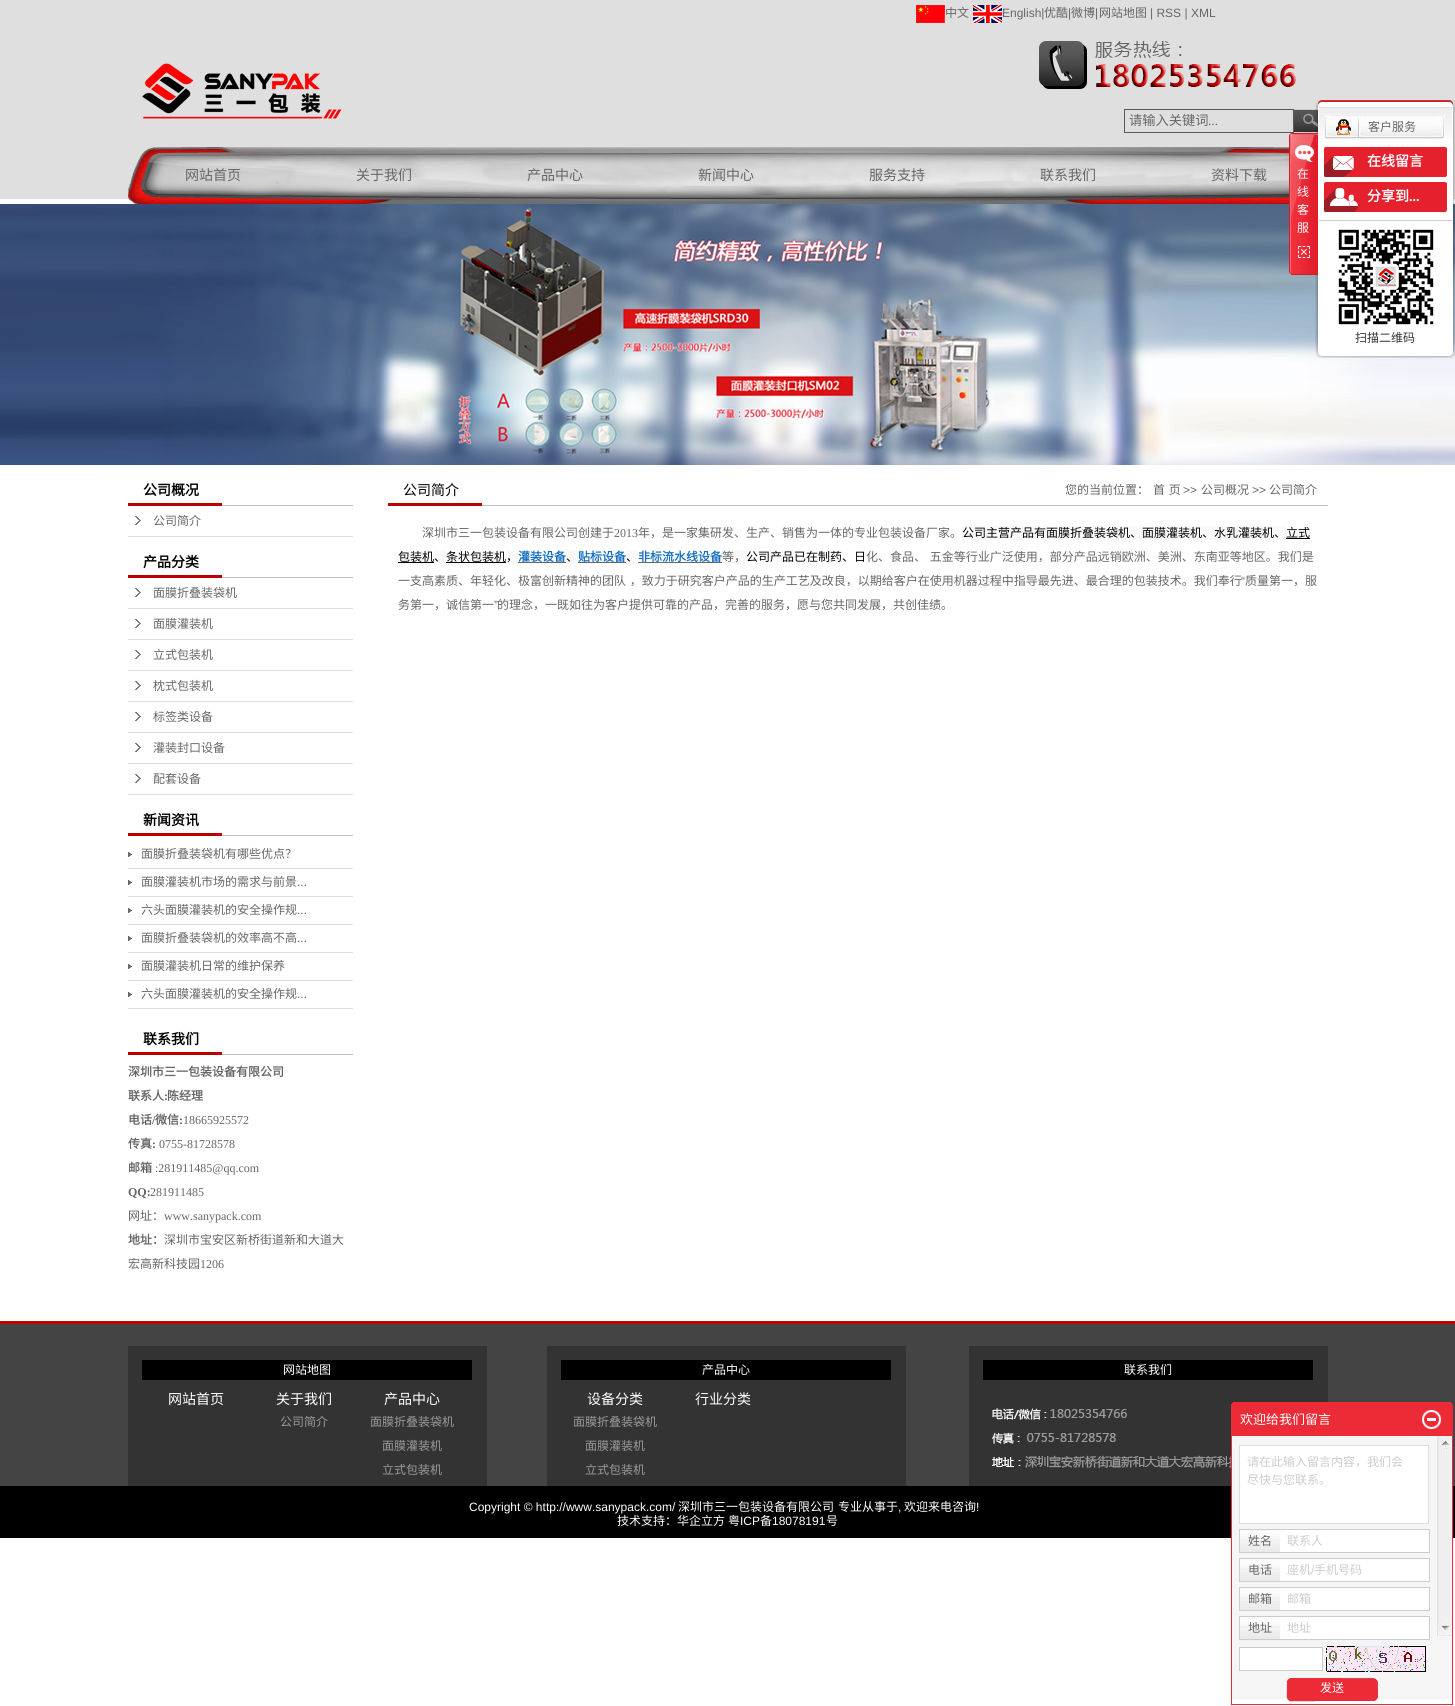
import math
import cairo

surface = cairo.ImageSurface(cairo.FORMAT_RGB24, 1455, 1706)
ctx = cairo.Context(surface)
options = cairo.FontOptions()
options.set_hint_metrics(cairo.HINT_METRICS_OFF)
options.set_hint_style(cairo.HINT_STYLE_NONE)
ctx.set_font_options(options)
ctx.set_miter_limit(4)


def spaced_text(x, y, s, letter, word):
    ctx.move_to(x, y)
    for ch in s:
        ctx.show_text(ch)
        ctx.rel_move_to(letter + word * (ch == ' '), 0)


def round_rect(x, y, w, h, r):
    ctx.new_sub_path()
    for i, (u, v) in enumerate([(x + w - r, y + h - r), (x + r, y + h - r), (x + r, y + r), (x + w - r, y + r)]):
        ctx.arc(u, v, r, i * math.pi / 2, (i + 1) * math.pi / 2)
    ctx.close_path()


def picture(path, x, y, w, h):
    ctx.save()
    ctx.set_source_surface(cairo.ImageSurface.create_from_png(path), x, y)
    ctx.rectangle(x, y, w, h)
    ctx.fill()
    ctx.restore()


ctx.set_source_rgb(1, 1, 1)
ctx.paint()
ctx.set_source_rgb(0.875, 0.875, 0.875)
ctx.rectangle(0, 0, 1455, 199)
ctx.fill()
picture("img1.png", 916, 5, 29, 18)
ctx.select_font_face("Noto Sans CJK SC")
ctx.set_font_size(12)
ctx.set_source_rgb(0.4, 0.4, 0.4)
ctx.move_to(945, 17)
ctx.show_text("中文")
picture("img2.png", 973, 5, 29, 18)
ctx.select_font_face("Liberation Sans")
ctx.move_to(1002, 17)
ctx.show_text("English|")
ctx.select_font_face("Noto Sans CJK SC")
ctx.move_to(1044, 17)
ctx.show_text("优酷")
ctx.select_font_face("Liberation Sans")
ctx.move_to(1068, 17)
ctx.show_text("|")
ctx.select_font_face("Noto Sans CJK SC")
ctx.move_to(1071, 17)
ctx.show_text("微博")
ctx.select_font_face("Liberation Sans")
ctx.move_to(1095, 17)
ctx.show_text("|")
ctx.select_font_face("Noto Sans CJK SC")
ctx.move_to(1099, 17)
ctx.show_text("网站地图")
ctx.select_font_face("Liberation Sans")
ctx.move_to(1150, 17)
ctx.show_text("| RSS | XML")
picture("img3.png", 142, 63, 200, 56)
picture("img4.png", 1039, 41, 257, 49)
ctx.rectangle(1124.5, 109.5, 169, 23)
ctx.set_source_rgb(0.349, 0.349, 0.349)
ctx.set_line_width(1)
ctx.stroke()
ctx.select_font_face("Noto Sans CJK SC")
ctx.set_font_size(13.25)
ctx.set_source_rgb(0.4, 0.4, 0.4)
ctx.move_to(1129, 125)
ctx.show_text("请输入关键词")
ctx.select_font_face("Liberation Serif")
ctx.move_to(1208, 125)
ctx.show_text("...")
picture("img5.png", 1294, 109, 24, 24)
picture("img6.png", 128, 147, 1161, 57)
ctx.select_font_face("Noto Sans CJK SC")
ctx.set_font_size(14)
ctx.move_to(185, 180)
ctx.show_text("网站首页")
ctx.move_to(356, 180)
ctx.show_text("关于我们")
ctx.move_to(527, 180)
ctx.show_text("产品中心")
ctx.move_to(698, 180)
ctx.show_text("新闻中心")
ctx.move_to(869, 180)
ctx.show_text("服务支持")
ctx.move_to(1040, 180)
ctx.show_text("联系我们")
ctx.move_to(1211, 180)
ctx.show_text("资料下载")
picture("img18.png", 0, 204, 1455, 261)
picture("img10.png", 1315, 107, 140, 243)
picture("img7.png", 1289, 133, 29, 142)
ctx.set_font_size(12)
ctx.set_source_rgb(1, 1, 1)
ctx.move_to(1297, 178)
ctx.show_text("在")
ctx.move_to(1297, 196)
ctx.show_text("线")
ctx.move_to(1297, 214)
ctx.show_text("客")
ctx.move_to(1297, 232)
ctx.show_text("服")
picture("img8.png", 1298, 246, 12, 12)
picture("img9.png", 1315, 100, 140, 7)
picture("img11.png", 1319, 107, 133, 32)
picture("img12.png", 1325, 115, 120, 24)
picture("img13.png", 1336, 119, 15, 16)
ctx.set_source_rgb(0.4, 0.4, 0.4)
ctx.move_to(1368, 131)
ctx.show_text("客户服务")
ctx.set_source_rgb(0.898, 0.129, 0.176)
round_rect(1324, 147, 123, 30, 2)
ctx.fill()
picture("img14.png", 1324, 156, 30, 21)
ctx.select_font_face("Noto Sans CJK SC", cairo.FONT_SLANT_NORMAL, cairo.FONT_WEIGHT_BOLD)
ctx.set_font_size(14)
ctx.set_source_rgb(1, 1, 1)
ctx.move_to(1367, 166)
ctx.show_text("在线留言")
ctx.set_source_rgb(0.898, 0.129, 0.176)
round_rect(1324, 182, 123, 30, 2)
ctx.fill()
picture("img15.png", 1324, 188, 34, 24)
ctx.set_source_rgb(1, 1, 1)
ctx.move_to(1367, 201)
ctx.show_text("分享到")
ctx.select_font_face("Liberation Serif", cairo.FONT_SLANT_NORMAL, cairo.FONT_WEIGHT_BOLD)
ctx.move_to(1409, 201)
ctx.show_text("...")
ctx.set_source_rgb(0.8, 0.8, 0.8)
ctx.rectangle(1319, 220, 133, 1)
ctx.fill()
picture("img16.png", 1338, 229, 96, 96)
ctx.select_font_face("Noto Sans CJK SC")
ctx.set_font_size(12)
ctx.set_source_rgb(0.2, 0.2, 0.2)
ctx.move_to(1355, 342)
ctx.show_text("扫描二维码")
picture("img17.png", 1315, 350, 140, 8)
picture("img19.png", 128, 503, 225, 3)
ctx.select_font_face("Noto Sans CJK SC", cairo.FONT_SLANT_NORMAL, cairo.FONT_WEIGHT_BOLD)
ctx.set_font_size(14)
ctx.set_source_rgb(0, 0, 0)
ctx.move_to(143, 495)
ctx.show_text("公司概况")
picture("img20.png", 135, 516, 6, 9)
ctx.set_source_rgb(0.867, 0.867, 0.867)
ctx.rectangle(128, 536, 225, 1)
ctx.fill()
ctx.select_font_face("Noto Sans CJK SC")
ctx.set_font_size(12)
ctx.set_source_rgb(0.4, 0.4, 0.4)
ctx.move_to(153, 525)
ctx.show_text("公司简介")
picture("img19.png", 128, 575, 225, 3)
ctx.select_font_face("Noto Sans CJK SC", cairo.FONT_SLANT_NORMAL, cairo.FONT_WEIGHT_BOLD)
ctx.set_font_size(14)
ctx.set_source_rgb(0, 0, 0)
ctx.move_to(143, 567)
ctx.show_text("产品分类")
picture("img20.png", 135, 588, 6, 9)
ctx.set_source_rgb(0.867, 0.867, 0.867)
ctx.rectangle(128, 608, 225, 1)
ctx.fill()
ctx.select_font_face("Noto Sans CJK SC")
ctx.set_font_size(12)
ctx.set_source_rgb(0.4, 0.4, 0.4)
ctx.move_to(153, 597)
ctx.show_text("面膜折叠装袋机")
picture("img20.png", 135, 619, 6, 9)
ctx.set_source_rgb(0.867, 0.867, 0.867)
ctx.rectangle(128, 639, 225, 1)
ctx.fill()
ctx.set_source_rgb(0.4, 0.4, 0.4)
ctx.move_to(153, 628)
ctx.show_text("面膜灌装机")
picture("img20.png", 135, 650, 6, 9)
ctx.set_source_rgb(0.867, 0.867, 0.867)
ctx.rectangle(128, 670, 225, 1)
ctx.fill()
ctx.set_source_rgb(0.4, 0.4, 0.4)
ctx.move_to(153, 659)
ctx.show_text("立式包装机")
picture("img20.png", 135, 681, 6, 9)
ctx.set_source_rgb(0.867, 0.867, 0.867)
ctx.rectangle(128, 701, 225, 1)
ctx.fill()
ctx.set_source_rgb(0.4, 0.4, 0.4)
ctx.move_to(153, 690)
ctx.show_text("枕式包装机")
picture("img20.png", 135, 712, 6, 9)
ctx.set_source_rgb(0.867, 0.867, 0.867)
ctx.rectangle(128, 732, 225, 1)
ctx.fill()
ctx.set_source_rgb(0.4, 0.4, 0.4)
ctx.move_to(153, 721)
ctx.show_text("标签类设备")
picture("img20.png", 135, 743, 6, 9)
ctx.set_source_rgb(0.867, 0.867, 0.867)
ctx.rectangle(128, 763, 225, 1)
ctx.fill()
ctx.set_source_rgb(0.4, 0.4, 0.4)
ctx.move_to(153, 752)
ctx.show_text("灌装封口设备")
picture("img20.png", 135, 774, 6, 9)
ctx.set_source_rgb(0.867, 0.867, 0.867)
ctx.rectangle(128, 794, 225, 1)
ctx.fill()
ctx.set_source_rgb(0.4, 0.4, 0.4)
ctx.move_to(153, 783)
ctx.show_text("配套设备")
picture("img19.png", 128, 833, 225, 3)
ctx.select_font_face("Noto Sans CJK SC", cairo.FONT_SLANT_NORMAL, cairo.FONT_WEIGHT_BOLD)
ctx.set_font_size(14)
ctx.set_source_rgb(0, 0, 0)
ctx.move_to(143, 825)
ctx.show_text("新闻资讯")
picture("img21.png", 128, 852, 4, 5)
ctx.set_source_rgb(0.867, 0.867, 0.867)
ctx.rectangle(128, 868, 225, 1)
ctx.fill()
ctx.select_font_face("Noto Sans CJK SC")
ctx.set_font_size(12)
ctx.set_source_rgb(0.4, 0.4, 0.4)
ctx.move_to(141, 858)
ctx.show_text("面膜折叠装袋机有哪些优点？")
picture("img21.png", 128, 880, 4, 5)
ctx.set_source_rgb(0.867, 0.867, 0.867)
ctx.rectangle(128, 896, 225, 1)
ctx.fill()
ctx.set_source_rgb(0.4, 0.4, 0.4)
ctx.move_to(141, 886)
ctx.show_text("面膜灌装机市场的需求与前景")
ctx.select_font_face("Liberation Sans")
ctx.move_to(297, 886)
ctx.show_text("...")
picture("img21.png", 128, 908, 4, 5)
ctx.set_source_rgb(0.867, 0.867, 0.867)
ctx.rectangle(128, 924, 225, 1)
ctx.fill()
ctx.select_font_face("Noto Sans CJK SC")
ctx.set_source_rgb(0.4, 0.4, 0.4)
ctx.move_to(141, 914)
ctx.show_text("六头面膜灌装机的安全操作规")
ctx.select_font_face("Liberation Sans")
ctx.move_to(297, 914)
ctx.show_text("...")
picture("img21.png", 128, 936, 4, 5)
ctx.set_source_rgb(0.867, 0.867, 0.867)
ctx.rectangle(128, 952, 225, 1)
ctx.fill()
ctx.select_font_face("Noto Sans CJK SC")
ctx.set_source_rgb(0.4, 0.4, 0.4)
ctx.move_to(141, 942)
ctx.show_text("面膜折叠装袋机的效率高不高")
ctx.select_font_face("Liberation Sans")
ctx.move_to(297, 942)
ctx.show_text("...")
picture("img21.png", 128, 964, 4, 5)
ctx.set_source_rgb(0.867, 0.867, 0.867)
ctx.rectangle(128, 980, 225, 1)
ctx.fill()
ctx.select_font_face("Noto Sans CJK SC")
ctx.set_source_rgb(0.4, 0.4, 0.4)
ctx.move_to(141, 970)
ctx.show_text("面膜灌装机日常的维护保养")
picture("img21.png", 128, 992, 4, 5)
ctx.set_source_rgb(0.867, 0.867, 0.867)
ctx.rectangle(128, 1008, 225, 1)
ctx.fill()
ctx.set_source_rgb(0.4, 0.4, 0.4)
ctx.move_to(141, 998)
ctx.show_text("六头面膜灌装机的安全操作规")
ctx.select_font_face("Liberation Sans")
ctx.move_to(297, 998)
ctx.show_text("...")
picture("img19.png", 128, 1052, 225, 3)
ctx.select_font_face("Noto Sans CJK SC", cairo.FONT_SLANT_NORMAL, cairo.FONT_WEIGHT_BOLD)
ctx.set_font_size(14)
ctx.set_source_rgb(0, 0, 0)
ctx.move_to(143, 1044)
ctx.show_text("联系我们")
ctx.set_font_size(12)
ctx.set_source_rgb(0.4, 0.4, 0.4)
ctx.move_to(128, 1076)
ctx.show_text("深圳市三一包装设备有限公司")
ctx.move_to(128, 1100)
ctx.show_text("联系人")
ctx.select_font_face("Liberation Serif", cairo.FONT_SLANT_NORMAL, cairo.FONT_WEIGHT_BOLD)
ctx.move_to(164, 1100)
ctx.show_text(":")
ctx.select_font_face("Noto Sans CJK SC", cairo.FONT_SLANT_NORMAL, cairo.FONT_WEIGHT_BOLD)
ctx.move_to(167, 1100)
ctx.show_text("陈经理")
ctx.move_to(128, 1124)
ctx.show_text("电话")
ctx.select_font_face("Liberation Serif", cairo.FONT_SLANT_NORMAL, cairo.FONT_WEIGHT_BOLD)
ctx.move_to(152, 1124)
ctx.show_text("/")
ctx.select_font_face("Noto Sans CJK SC", cairo.FONT_SLANT_NORMAL, cairo.FONT_WEIGHT_BOLD)
ctx.move_to(155, 1124)
ctx.show_text("微信")
ctx.select_font_face("Liberation Serif", cairo.FONT_SLANT_NORMAL, cairo.FONT_WEIGHT_BOLD)
ctx.move_to(179, 1124)
ctx.show_text(":")
ctx.select_font_face("Liberation Serif")
ctx.move_to(183, 1124)
ctx.show_text("18665925572")
ctx.select_font_face("Noto Sans CJK SC", cairo.FONT_SLANT_NORMAL, cairo.FONT_WEIGHT_BOLD)
ctx.move_to(128, 1148)
ctx.show_text("传真")
ctx.select_font_face("Liberation Serif", cairo.FONT_SLANT_NORMAL, cairo.FONT_WEIGHT_BOLD)
ctx.move_to(152, 1148)
ctx.show_text(":")
ctx.select_font_face("Liberation Serif")
ctx.move_to(159, 1148)
ctx.show_text("0755-81728578")
ctx.select_font_face("Noto Sans CJK SC", cairo.FONT_SLANT_NORMAL, cairo.FONT_WEIGHT_BOLD)
ctx.move_to(128, 1172)
ctx.show_text("邮箱")
ctx.select_font_face("Liberation Serif")
ctx.move_to(155, 1172)
ctx.show_text(":281911485@qq.com")
ctx.select_font_face("Liberation Serif", cairo.FONT_SLANT_NORMAL, cairo.FONT_WEIGHT_BOLD)
ctx.move_to(128, 1196)
ctx.show_text("QQ:")
ctx.select_font_face("Liberation Serif")
ctx.move_to(150, 1196)
ctx.show_text("281911485")
ctx.select_font_face("Noto Sans CJK SC")
ctx.move_to(128, 1220)
ctx.show_text("网址：")
ctx.select_font_face("Liberation Serif")
ctx.move_to(164, 1220)
ctx.show_text("www.sanypack.com")
ctx.select_font_face("Noto Sans CJK SC", cairo.FONT_SLANT_NORMAL, cairo.FONT_WEIGHT_BOLD)
ctx.move_to(128, 1244)
ctx.show_text("地址：")
ctx.select_font_face("Noto Sans CJK SC")
ctx.move_to(164, 1244)
ctx.show_text("深圳市宝安区新桥街道新和大道大")
ctx.move_to(128, 1268)
ctx.show_text("宏高新科技园")
ctx.select_font_face("Liberation Serif")
ctx.move_to(200, 1268)
ctx.show_text("1206")
picture("img22.png", 388, 503, 940, 3)
ctx.select_font_face("Noto Sans CJK SC")
ctx.set_font_size(14)
ctx.set_source_rgb(0, 0, 0)
ctx.move_to(403, 495)
ctx.show_text("公司简介")
ctx.set_font_size(12)
ctx.set_source_rgb(0.4, 0.4, 0.4)
ctx.move_to(1065, 494)
ctx.show_text("您的当前位置：")
spaced_text(1153, 494, "首 页", 0, 1)
ctx.select_font_face("Liberation Sans")
ctx.move_to(1183, 494)
ctx.show_text(">>")
ctx.select_font_face("Noto Sans CJK SC")
ctx.move_to(1201, 494)
ctx.show_text("公司概况")
ctx.select_font_face("Liberation Sans")
ctx.move_to(1252, 494)
ctx.show_text(">>")
ctx.select_font_face("Noto Sans CJK SC")
ctx.move_to(1269, 494)
ctx.show_text("公司简介")
ctx.move_to(422, 537)
ctx.show_text("深圳市三一包装设备有限公司创建于")
ctx.select_font_face("Liberation Serif")
ctx.move_to(614, 537)
ctx.show_text("2013")
ctx.select_font_face("Noto Sans CJK SC")
ctx.move_to(638, 537)
ctx.show_text("年，是一家集研发、生产、销售为一体的专业包装设备厂家。")
ctx.set_source_rgb(0.976, 0.976, 0.976)
ctx.rectangle(962, 526, 324, 14)
ctx.fill()
ctx.set_source_rgb(0, 0, 0)
ctx.move_to(962, 537)
ctx.show_text("公司主营产品有面膜折叠装袋机、面膜灌装机、水乳灌装机、立式")
ctx.rectangle(1286, 538, 24, 1)
ctx.fill()
ctx.move_to(398, 561)
ctx.show_text("包装机")
ctx.rectangle(398, 562, 36, 1)
ctx.fill()
ctx.set_source_rgb(0.976, 0.976, 0.976)
ctx.rectangle(434, 550, 12, 14)
ctx.fill()
ctx.set_source_rgb(0, 0, 0)
ctx.move_to(434, 561)
ctx.show_text("、条状包装机")
ctx.set_source_rgb(0.976, 0.976, 0.976)
ctx.rectangle(506, 550, 12, 14)
ctx.fill()
ctx.set_source_rgb(0, 0, 0)
ctx.move_to(506, 561)
ctx.show_text("，")
ctx.rectangle(446, 562, 60, 1)
ctx.fill()
ctx.set_source_rgb(0.4, 0.4, 0.4)
ctx.rectangle(518, 562, 48, 1)
ctx.fill()
ctx.select_font_face("Noto Sans CJK SC", cairo.FONT_SLANT_NORMAL, cairo.FONT_WEIGHT_BOLD)
ctx.set_source_rgb(0.075, 0.431, 0.761)
ctx.move_to(518, 561)
ctx.show_text("灌装设备")
ctx.set_source_rgb(0.976, 0.976, 0.976)
ctx.rectangle(566, 550, 12, 14)
ctx.fill()
ctx.select_font_face("Noto Sans CJK SC")
ctx.set_source_rgb(0, 0, 0)
ctx.move_to(566, 561)
ctx.show_text("、")
ctx.select_font_face("Noto Sans CJK SC", cairo.FONT_SLANT_NORMAL, cairo.FONT_WEIGHT_BOLD)
ctx.set_source_rgb(0.075, 0.431, 0.761)
ctx.move_to(578, 561)
ctx.show_text("贴标设备")
ctx.set_source_rgb(0.4, 0.4, 0.4)
ctx.rectangle(578, 562, 48, 1)
ctx.fill()
ctx.set_source_rgb(0.976, 0.976, 0.976)
ctx.rectangle(626, 550, 12, 14)
ctx.fill()
ctx.select_font_face("Noto Sans CJK SC")
ctx.set_source_rgb(0, 0, 0)
ctx.move_to(626, 561)
ctx.show_text("、")
ctx.select_font_face("Noto Sans CJK SC", cairo.FONT_SLANT_NORMAL, cairo.FONT_WEIGHT_BOLD)
ctx.set_source_rgb(0.075, 0.431, 0.761)
ctx.move_to(638, 561)
ctx.show_text("非标流水线设备")
ctx.set_source_rgb(0.4, 0.4, 0.4)
ctx.rectangle(638, 562, 84, 1)
ctx.fill()
ctx.set_source_rgb(0.976, 0.976, 0.976)
ctx.rectangle(722, 550, 24, 14)
ctx.fill()
ctx.select_font_face("Noto Sans CJK SC")
ctx.set_source_rgb(0.4, 0.4, 0.4)
ctx.move_to(722, 561)
ctx.show_text("等，")
ctx.set_source_rgb(0, 0, 0)
ctx.move_to(746, 561)
ctx.show_text("公司产品已在制药、日")
ctx.set_source_rgb(0.4, 0.4, 0.4)
spaced_text(866, 561, "化、食品、 五金等行业广泛使用，部分产品远销欧洲、美洲、东南亚等地区。我们是", 0, 1)
spaced_text(398, 585, "一支高素质、年轻化、极富创新精神的团队 ，致力于研究客户产品的生产工艺及改良，以期给客户在使用机器过程中指导最先进、最合理的包装技术。我们奉行", 0, 1)
ctx.select_font_face("Liberation Sans")
ctx.move_to(1241, 585)
ctx.show_text("“")
ctx.select_font_face("Noto Sans CJK SC")
ctx.move_to(1245, 585)
ctx.show_text("质量第一，服")
ctx.move_to(398, 609)
ctx.show_text("务第一，诚信第一")
ctx.select_font_face("Liberation Sans")
ctx.move_to(494, 609)
ctx.show_text("”")
ctx.select_font_face("Noto Sans CJK SC")
ctx.move_to(497, 609)
ctx.show_text("的理念，一既如往为客户提供可靠的产品，完善的服务，愿与您共同发展，共创佳绩。")
picture("img23.png", 0, 1321, 1455, 165)
ctx.set_source_rgb(0.2, 0.2, 0.2)
ctx.rectangle(128, 1346, 359, 140)
ctx.fill()
ctx.set_source_rgb(0, 0, 0)
ctx.rectangle(142, 1360, 330, 20)
ctx.fill()
ctx.set_source_rgb(1, 1, 1)
ctx.move_to(283, 1374)
ctx.show_text("网站地图")
ctx.set_font_size(14)
ctx.move_to(168, 1404)
ctx.show_text("网站首页")
ctx.move_to(276, 1404)
ctx.show_text("关于我们")
ctx.set_font_size(12)
ctx.set_source_rgb(0.604, 0.604, 0.604)
ctx.move_to(280, 1426)
ctx.show_text("公司简介")
ctx.set_font_size(14)
ctx.set_source_rgb(1, 1, 1)
ctx.move_to(384, 1404)
ctx.show_text("产品中心")
ctx.set_font_size(12)
ctx.set_source_rgb(0.604, 0.604, 0.604)
ctx.move_to(370, 1426)
ctx.show_text("面膜折叠装袋机")
ctx.move_to(382, 1450)
ctx.show_text("面膜灌装机")
ctx.move_to(382, 1474)
ctx.show_text("立式包装机")
ctx.set_source_rgb(0.2, 0.2, 0.2)
ctx.rectangle(547, 1346, 359, 140)
ctx.fill()
ctx.set_source_rgb(0, 0, 0)
ctx.rectangle(561, 1360, 330, 20)
ctx.fill()
ctx.set_source_rgb(1, 1, 1)
ctx.move_to(702, 1374)
ctx.show_text("产品中心")
ctx.set_font_size(14)
ctx.move_to(587, 1404)
ctx.show_text("设备分类")
ctx.set_font_size(12)
ctx.set_source_rgb(0.604, 0.604, 0.604)
ctx.move_to(573, 1426)
ctx.show_text("面膜折叠装袋机")
ctx.move_to(585, 1450)
ctx.show_text("面膜灌装机")
ctx.move_to(585, 1474)
ctx.show_text("立式包装机")
ctx.set_font_size(14)
ctx.set_source_rgb(1, 1, 1)
ctx.move_to(695, 1404)
ctx.show_text("行业分类")
ctx.set_source_rgb(0.2, 0.2, 0.2)
ctx.rectangle(969, 1346, 359, 140)
ctx.fill()
ctx.set_source_rgb(0, 0, 0)
ctx.rectangle(983, 1360, 330, 20)
ctx.fill()
ctx.set_font_size(12)
ctx.set_source_rgb(1, 1, 1)
ctx.move_to(1124, 1374)
ctx.show_text("联系我们")
picture("img24.png", 992, 1408, 239, 60)
ctx.set_source_rgb(0.929, 0.169, 0.212)
ctx.rectangle(1233, 1402, 218, 1)
ctx.fill()
ctx.rectangle(1232, 1403, 220, 1)
ctx.fill()
ctx.rectangle(1231, 1404, 222, 31)
ctx.fill()
ctx.set_font_size(13)
ctx.set_source_rgb(1, 1, 1)
ctx.move_to(1240, 1424)
ctx.show_text("欢迎给我们留言")
picture("img25.png", 1422, 1410, 19, 19)
ctx.set_source_rgb(0, 0, 0)
ctx.rectangle(0, 1486, 1455, 52)
ctx.fill()
picture("img26.png", 1232, 1436, 220, 263)
ctx.rectangle(1231.5, 1435.5, 221, 269)
ctx.set_source_rgb(0.929, 0.169, 0.212)
ctx.stroke()
ctx.set_source_rgb(1, 1, 1)
ctx.rectangle(1239.5, 1445.5, 189, 78)
ctx.fill_preserve()
ctx.set_source_rgb(0.871, 0.871, 0.871)
ctx.stroke()
ctx.set_font_size(12)
ctx.set_source_rgb(0.8, 0.8, 0.8)
ctx.move_to(1247, 1466)
ctx.show_text("请在此输入留言内容，我们会")
ctx.move_to(1247, 1484)
ctx.show_text("尽快与您联系。")
ctx.set_source_rgb(1, 1, 1)
ctx.rectangle(1280, 1530, 149, 22)
ctx.fill()
ctx.rectangle(1239.5, 1529.5, 190, 23)
ctx.set_source_rgb(0.8, 0.8, 0.8)
ctx.stroke()
picture("img27.png", 1240, 1530, 40, 22)
ctx.set_source_rgb(0.4, 0.4, 0.4)
ctx.move_to(1248, 1545)
ctx.show_text("姓名")
ctx.set_source_rgb(0.8, 0.8, 0.8)
ctx.move_to(1287, 1545)
ctx.show_text("联系人")
ctx.set_source_rgb(1, 1, 1)
ctx.rectangle(1280, 1559, 149, 22)
ctx.fill()
ctx.rectangle(1239.5, 1558.5, 190, 23)
ctx.set_source_rgb(0.8, 0.8, 0.8)
ctx.stroke()
picture("img27.png", 1240, 1559, 40, 22)
ctx.set_source_rgb(0.4, 0.4, 0.4)
ctx.move_to(1248, 1574)
ctx.show_text("电话")
ctx.set_source_rgb(0.8, 0.8, 0.8)
ctx.move_to(1287, 1574)
ctx.show_text("座机")
ctx.select_font_face("Liberation Sans")
ctx.move_to(1311, 1574)
ctx.show_text("/")
ctx.select_font_face("Noto Sans CJK SC")
ctx.move_to(1314, 1574)
ctx.show_text("手机号码")
ctx.set_source_rgb(1, 1, 1)
ctx.rectangle(1280, 1588, 149, 22)
ctx.fill()
ctx.rectangle(1239.5, 1587.5, 190, 23)
ctx.set_source_rgb(0.8, 0.8, 0.8)
ctx.stroke()
picture("img27.png", 1240, 1588, 40, 22)
ctx.set_source_rgb(0.4, 0.4, 0.4)
ctx.move_to(1248, 1603)
ctx.show_text("邮箱")
ctx.set_source_rgb(0.8, 0.8, 0.8)
ctx.move_to(1287, 1603)
ctx.show_text("邮箱")
ctx.set_source_rgb(1, 1, 1)
ctx.rectangle(1280, 1617, 149, 22)
ctx.fill()
ctx.rectangle(1239.5, 1616.5, 190, 23)
ctx.set_source_rgb(0.8, 0.8, 0.8)
ctx.stroke()
picture("img27.png", 1240, 1617, 40, 22)
ctx.set_source_rgb(0.4, 0.4, 0.4)
ctx.move_to(1248, 1632)
ctx.show_text("地址")
ctx.set_source_rgb(0.8, 0.8, 0.8)
ctx.move_to(1287, 1632)
ctx.show_text("地址")
ctx.set_source_rgb(1, 1, 1)
ctx.rectangle(1239.5, 1647.5, 83, 23)
ctx.fill_preserve()
ctx.set_source_rgb(0.8, 0.8, 0.8)
ctx.stroke()
picture("img28.png", 1326, 1646, 100, 26)
picture("img29.png", 1286, 1678, 92, 24)
ctx.set_source_rgb(1, 1, 1)
ctx.move_to(1320, 1692)
ctx.show_text("发送")
ctx.select_font_face("Liberation Sans")
ctx.move_to(469, 1511)
ctx.show_text("Copyright © http://www.sanypack.com/")
ctx.select_font_face("Noto Sans CJK SC")
ctx.move_to(678, 1511)
ctx.show_text("深圳市三一包装设备有限公司")
ctx.move_to(838, 1511)
ctx.show_text("专业从事于")
ctx.select_font_face("Liberation Sans")
ctx.move_to(898, 1511)
ctx.show_text(",")
ctx.select_font_face("Noto Sans CJK SC")
ctx.move_to(904, 1511)
ctx.show_text("欢迎来电咨询")
ctx.select_font_face("Liberation Sans")
ctx.move_to(976, 1511)
ctx.show_text("!")
ctx.select_font_face("Noto Sans CJK SC")
ctx.move_to(617, 1525)
ctx.show_text("技术支持：华企立方")
ctx.move_to(728, 1525)
ctx.show_text("粤")
ctx.select_font_face("Liberation Sans")
ctx.move_to(740, 1525)
ctx.show_text("ICP")
ctx.select_font_face("Noto Sans CJK SC")
ctx.move_to(760, 1525)
ctx.show_text("备")
ctx.select_font_face("Liberation Sans")
ctx.move_to(772, 1525)
ctx.show_text("18078191")
ctx.select_font_face("Noto Sans CJK SC")
ctx.move_to(826, 1525)
ctx.show_text("号")
surface.write_to_png("page.png")
